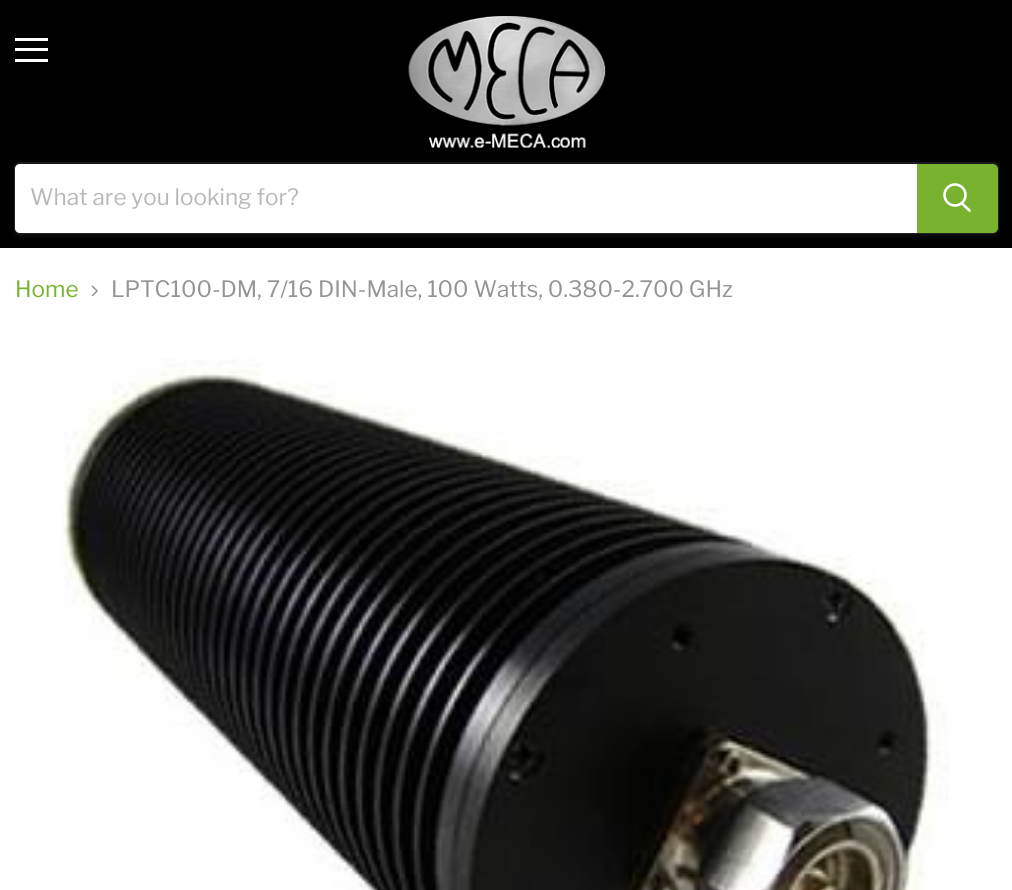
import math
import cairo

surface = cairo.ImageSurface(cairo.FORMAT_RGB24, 1012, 890)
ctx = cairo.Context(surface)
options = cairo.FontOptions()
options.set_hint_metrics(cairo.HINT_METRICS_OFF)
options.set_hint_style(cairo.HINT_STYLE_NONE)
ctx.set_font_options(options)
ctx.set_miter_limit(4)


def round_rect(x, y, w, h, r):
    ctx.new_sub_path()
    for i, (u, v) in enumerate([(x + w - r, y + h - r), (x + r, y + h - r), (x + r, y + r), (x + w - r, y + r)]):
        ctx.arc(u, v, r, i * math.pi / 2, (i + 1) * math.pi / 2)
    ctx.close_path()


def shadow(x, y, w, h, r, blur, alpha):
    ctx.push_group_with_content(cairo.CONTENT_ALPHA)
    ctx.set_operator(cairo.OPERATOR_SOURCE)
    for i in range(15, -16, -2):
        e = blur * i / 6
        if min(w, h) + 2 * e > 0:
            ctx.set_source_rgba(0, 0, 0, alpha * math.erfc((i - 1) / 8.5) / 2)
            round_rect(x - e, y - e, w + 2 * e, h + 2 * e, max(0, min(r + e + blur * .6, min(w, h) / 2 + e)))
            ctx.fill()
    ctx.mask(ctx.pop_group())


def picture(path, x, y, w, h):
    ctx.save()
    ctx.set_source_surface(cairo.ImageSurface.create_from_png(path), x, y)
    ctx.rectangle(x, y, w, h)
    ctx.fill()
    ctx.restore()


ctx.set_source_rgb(1, 1, 1)
ctx.paint()
ctx.set_source_rgb(0, 0, 0)
ctx.rectangle(0, 0, 1012, 248)
ctx.fill()
ctx.set_source_rgb(1, 1, 1)
ctx.rectangle(15, 38, 33, 3)
ctx.fill()
ctx.rectangle(15, 48, 33, 3)
ctx.fill()
ctx.rectangle(15, 59, 33, 3)
ctx.fill()
picture("img1.png", 408, 16, 198, 132)
ctx.set_source_rgb(0.502, 0.502, 0.502)
shadow(14, 165, 985, 72, 6, 2, 0.11)
round_rect(15, 163, 983, 70, 5)
ctx.set_source_rgba(0.502, 0.502, 0.502, 0.2)
ctx.stroke()
ctx.set_source_rgb(1, 1, 1)
ctx.new_path()
ctx.move_to(20, 164)
ctx.line_to(917, 164)
ctx.line_to(917, 233)
ctx.line_to(20, 233)
ctx.curve_to(17, 233, 15, 231, 15, 228)
ctx.line_to(15, 169)
ctx.curve_to(15, 166, 17, 164, 20, 164)
ctx.close_path()
ctx.fill()
ctx.select_font_face("Libre Franklin")
ctx.set_font_size(22.5)
ctx.set_source_rgb(0.722, 0.722, 0.722)
ctx.move_to(30, 205)
ctx.show_text("What are you looking for?")
ctx.set_source_rgb(0.471, 0.698, 0.184)
ctx.new_path()
ctx.move_to(918, 165)
ctx.line_to(993, 165)
ctx.curve_to(995, 165, 997, 167, 997, 169)
ctx.line_to(997, 228)
ctx.curve_to(997, 230, 995, 232, 993, 232)
ctx.line_to(918, 232)
ctx.close_path()
ctx.fill_preserve()
ctx.stroke()
ctx.new_path()
ctx.move_to(969.5, 210.5)
ctx.line_to(962, 203.5)
ctx.set_source_rgb(1, 1, 1)
ctx.set_line_width(2.6)
ctx.set_line_cap(cairo.LINE_CAP_ROUND)
ctx.stroke()
ctx.arc(955, 195, 10.5, 0, 2 * math.pi)
ctx.set_line_cap(cairo.LINE_CAP_BUTT)
ctx.stroke()
ctx.set_source_rgb(0.471, 0.698, 0.184)
ctx.move_to(15, 297)
ctx.show_text("Home")
picture("img2.png", 91, 285, 7, 12)
ctx.set_source_rgb(0.58, 0.58, 0.58)
ctx.move_to(111, 297)
ctx.show_text("LPTC100-DM, 7/16 DIN-Male, 100 Watts, 0.380-2.700 GHz")
picture("img3.png", 61, 358, 888, 532)
surface.write_to_png("page.png")
